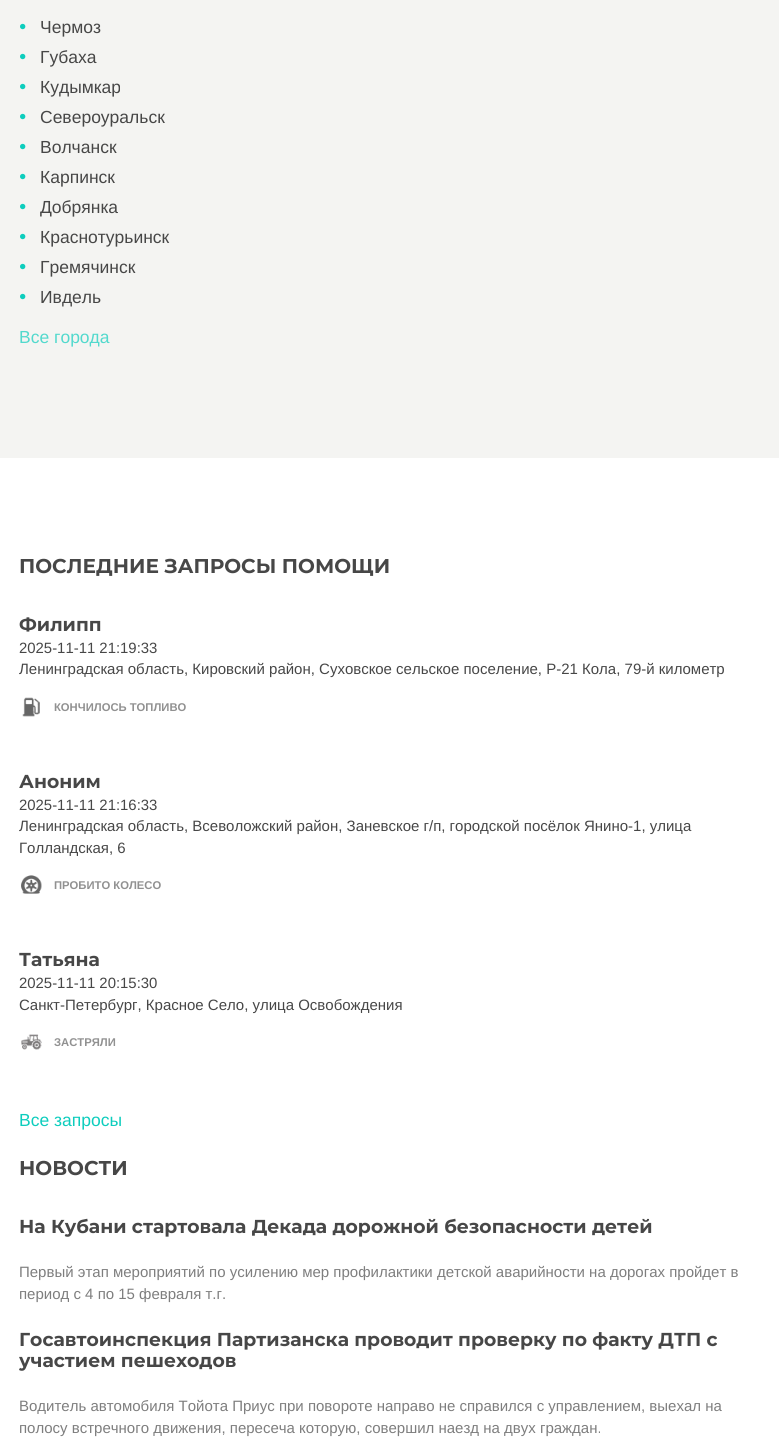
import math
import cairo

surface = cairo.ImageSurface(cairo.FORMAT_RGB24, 779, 1451)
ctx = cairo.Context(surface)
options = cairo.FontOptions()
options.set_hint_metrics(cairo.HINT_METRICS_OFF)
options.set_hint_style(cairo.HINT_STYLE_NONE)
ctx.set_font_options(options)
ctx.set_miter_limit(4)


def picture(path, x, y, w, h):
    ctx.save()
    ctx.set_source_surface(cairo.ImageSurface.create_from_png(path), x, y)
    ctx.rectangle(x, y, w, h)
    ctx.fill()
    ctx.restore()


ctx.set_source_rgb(1, 1, 1)
ctx.paint()
ctx.set_source_rgb(0.957, 0.957, 0.949)
ctx.rectangle(0, 0, 779, 458)
ctx.fill()
picture("img1.png", 20, 23, 6, 7)
ctx.select_font_face("Liberation Sans")
ctx.set_font_size(17.5)
ctx.set_source_rgb(0.278, 0.278, 0.278)
ctx.move_to(40, 33)
ctx.show_text("Чермоз")
picture("img1.png", 20, 53, 6, 7)
ctx.move_to(40, 63)
ctx.show_text("Губаха")
picture("img1.png", 20, 83, 6, 7)
ctx.move_to(40, 93)
ctx.show_text("Кудымкар")
picture("img1.png", 20, 113, 6, 7)
ctx.move_to(40, 123)
ctx.show_text("Североуральск")
picture("img1.png", 20, 143, 6, 7)
ctx.move_to(40, 153)
ctx.show_text("Волчанск")
picture("img1.png", 20, 173, 6, 7)
ctx.move_to(40, 183)
ctx.show_text("Карпинск")
picture("img1.png", 20, 203, 6, 7)
ctx.move_to(40, 213)
ctx.show_text("Добрянка")
picture("img1.png", 20, 233, 6, 7)
ctx.move_to(40, 243)
ctx.show_text("Краснотурьинск")
picture("img1.png", 20, 263, 6, 7)
ctx.move_to(40, 273)
ctx.show_text("Гремячинск")
picture("img1.png", 20, 293, 6, 7)
ctx.move_to(40, 303)
ctx.show_text("Ивдель")
ctx.set_source_rgb(0.322, 0.851, 0.804)
ctx.move_to(19, 343)
ctx.show_text("Все города")
ctx.select_font_face("Montserrat", cairo.FONT_SLANT_NORMAL, cairo.FONT_WEIGHT_BOLD)
ctx.set_font_size(20)
ctx.set_source_rgb(0.278, 0.278, 0.278)
ctx.move_to(19, 573)
ctx.show_text("ПОСЛЕДНИЕ ЗАПРОСЫ ПОМОЩИ")
ctx.set_font_size(18.75)
ctx.move_to(19, 631)
ctx.show_text("Филипп")
ctx.select_font_face("Liberation Sans")
ctx.set_font_size(14.9)
ctx.move_to(19, 653)
ctx.show_text("2025-11-11 21:19:33")
ctx.set_font_size(15)
ctx.move_to(19, 674)
ctx.show_text("Ленинградская область, Кировский район, Суховское сельское поселение, Р-21 Кола, 79-й километр")
picture("img2.png", 22, 697, 18, 20)
ctx.select_font_face("Liberation Sans", cairo.FONT_SLANT_NORMAL, cairo.FONT_WEIGHT_BOLD)
ctx.set_font_size(11.25)
ctx.set_source_rgb(0.569, 0.569, 0.569)
ctx.move_to(54, 711)
ctx.show_text("КОНЧИЛОСЬ ТОПЛИВО")
ctx.select_font_face("Montserrat", cairo.FONT_SLANT_NORMAL, cairo.FONT_WEIGHT_BOLD)
ctx.set_font_size(18.75)
ctx.set_source_rgb(0.278, 0.278, 0.278)
ctx.move_to(19, 788)
ctx.show_text("Аноним")
ctx.select_font_face("Liberation Sans")
ctx.set_font_size(14.9)
ctx.move_to(19, 810)
ctx.show_text("2025-11-11 21:16:33")
ctx.set_font_size(15)
ctx.move_to(19, 831)
ctx.show_text("Ленинградская область, Всеволожский район, Заневское г/п, городской посёлок Янино-1, улица")
ctx.move_to(19, 853)
ctx.show_text("Голландская, 6")
picture("img3.png", 21, 875, 21, 19)
ctx.select_font_face("Liberation Sans", cairo.FONT_SLANT_NORMAL, cairo.FONT_WEIGHT_BOLD)
ctx.set_font_size(11.25)
ctx.set_source_rgb(0.569, 0.569, 0.569)
ctx.move_to(54, 889)
ctx.show_text("ПРОБИТО КОЛЕСО")
ctx.select_font_face("Montserrat", cairo.FONT_SLANT_NORMAL, cairo.FONT_WEIGHT_BOLD)
ctx.set_font_size(18.75)
ctx.set_source_rgb(0.278, 0.278, 0.278)
ctx.move_to(19, 966)
ctx.show_text("Татьяна")
ctx.select_font_face("Liberation Sans")
ctx.set_font_size(14.9)
ctx.move_to(19, 988)
ctx.show_text("2025-11-11 20:15:30")
ctx.set_font_size(15)
ctx.move_to(19, 1010)
ctx.show_text("Санкт-Петербург, Красное Село, улица Освобождения")
picture("img4.png", 21, 1034, 21, 16)
ctx.select_font_face("Liberation Sans", cairo.FONT_SLANT_NORMAL, cairo.FONT_WEIGHT_BOLD)
ctx.set_font_size(11.25)
ctx.set_source_rgb(0.569, 0.569, 0.569)
ctx.move_to(54, 1046)
ctx.show_text("ЗАСТРЯЛИ")
ctx.select_font_face("Liberation Sans")
ctx.set_font_size(17.5)
ctx.set_source_rgb(0.051, 0.804, 0.741)
ctx.move_to(19, 1126)
ctx.show_text("Все запросы")
ctx.select_font_face("Montserrat", cairo.FONT_SLANT_NORMAL, cairo.FONT_WEIGHT_BOLD)
ctx.set_font_size(20)
ctx.set_source_rgb(0.278, 0.278, 0.278)
ctx.move_to(19, 1175)
ctx.show_text("НОВОСТИ")
ctx.set_font_size(18.75)
ctx.move_to(19, 1233)
ctx.show_text("На Кубани стартовала Декада дорожной безопасности детей")
ctx.select_font_face("Liberation Sans")
ctx.set_font_size(15)
ctx.set_source_rgb(0.494, 0.494, 0.494)
ctx.move_to(19, 1277)
ctx.show_text("Первый этап мероприятий по усилению мер профилактики детской аварийности на дорогах пройдет в")
ctx.move_to(19, 1299)
ctx.show_text("период с 4 по 15 февраля т.г.")
ctx.select_font_face("Montserrat", cairo.FONT_SLANT_NORMAL, cairo.FONT_WEIGHT_BOLD)
ctx.set_font_size(18.75)
ctx.set_source_rgb(0.278, 0.278, 0.278)
ctx.move_to(19, 1346)
ctx.show_text("Госавтоинспекция Партизанска проводит проверку по факту ДТП с")
ctx.move_to(19, 1367)
ctx.show_text("участием пешеходов")
ctx.select_font_face("Liberation Sans")
ctx.set_font_size(15)
ctx.set_source_rgb(0.494, 0.494, 0.494)
ctx.move_to(19, 1411)
ctx.show_text("Водитель автомобиля Тойота Приус при повороте направо не справился с управлением, выехал на")
ctx.move_to(19, 1433)
ctx.show_text("полосу встречного движения, пересеча которую, совершил наезд на двух граждан.")
surface.write_to_png("page.png")
